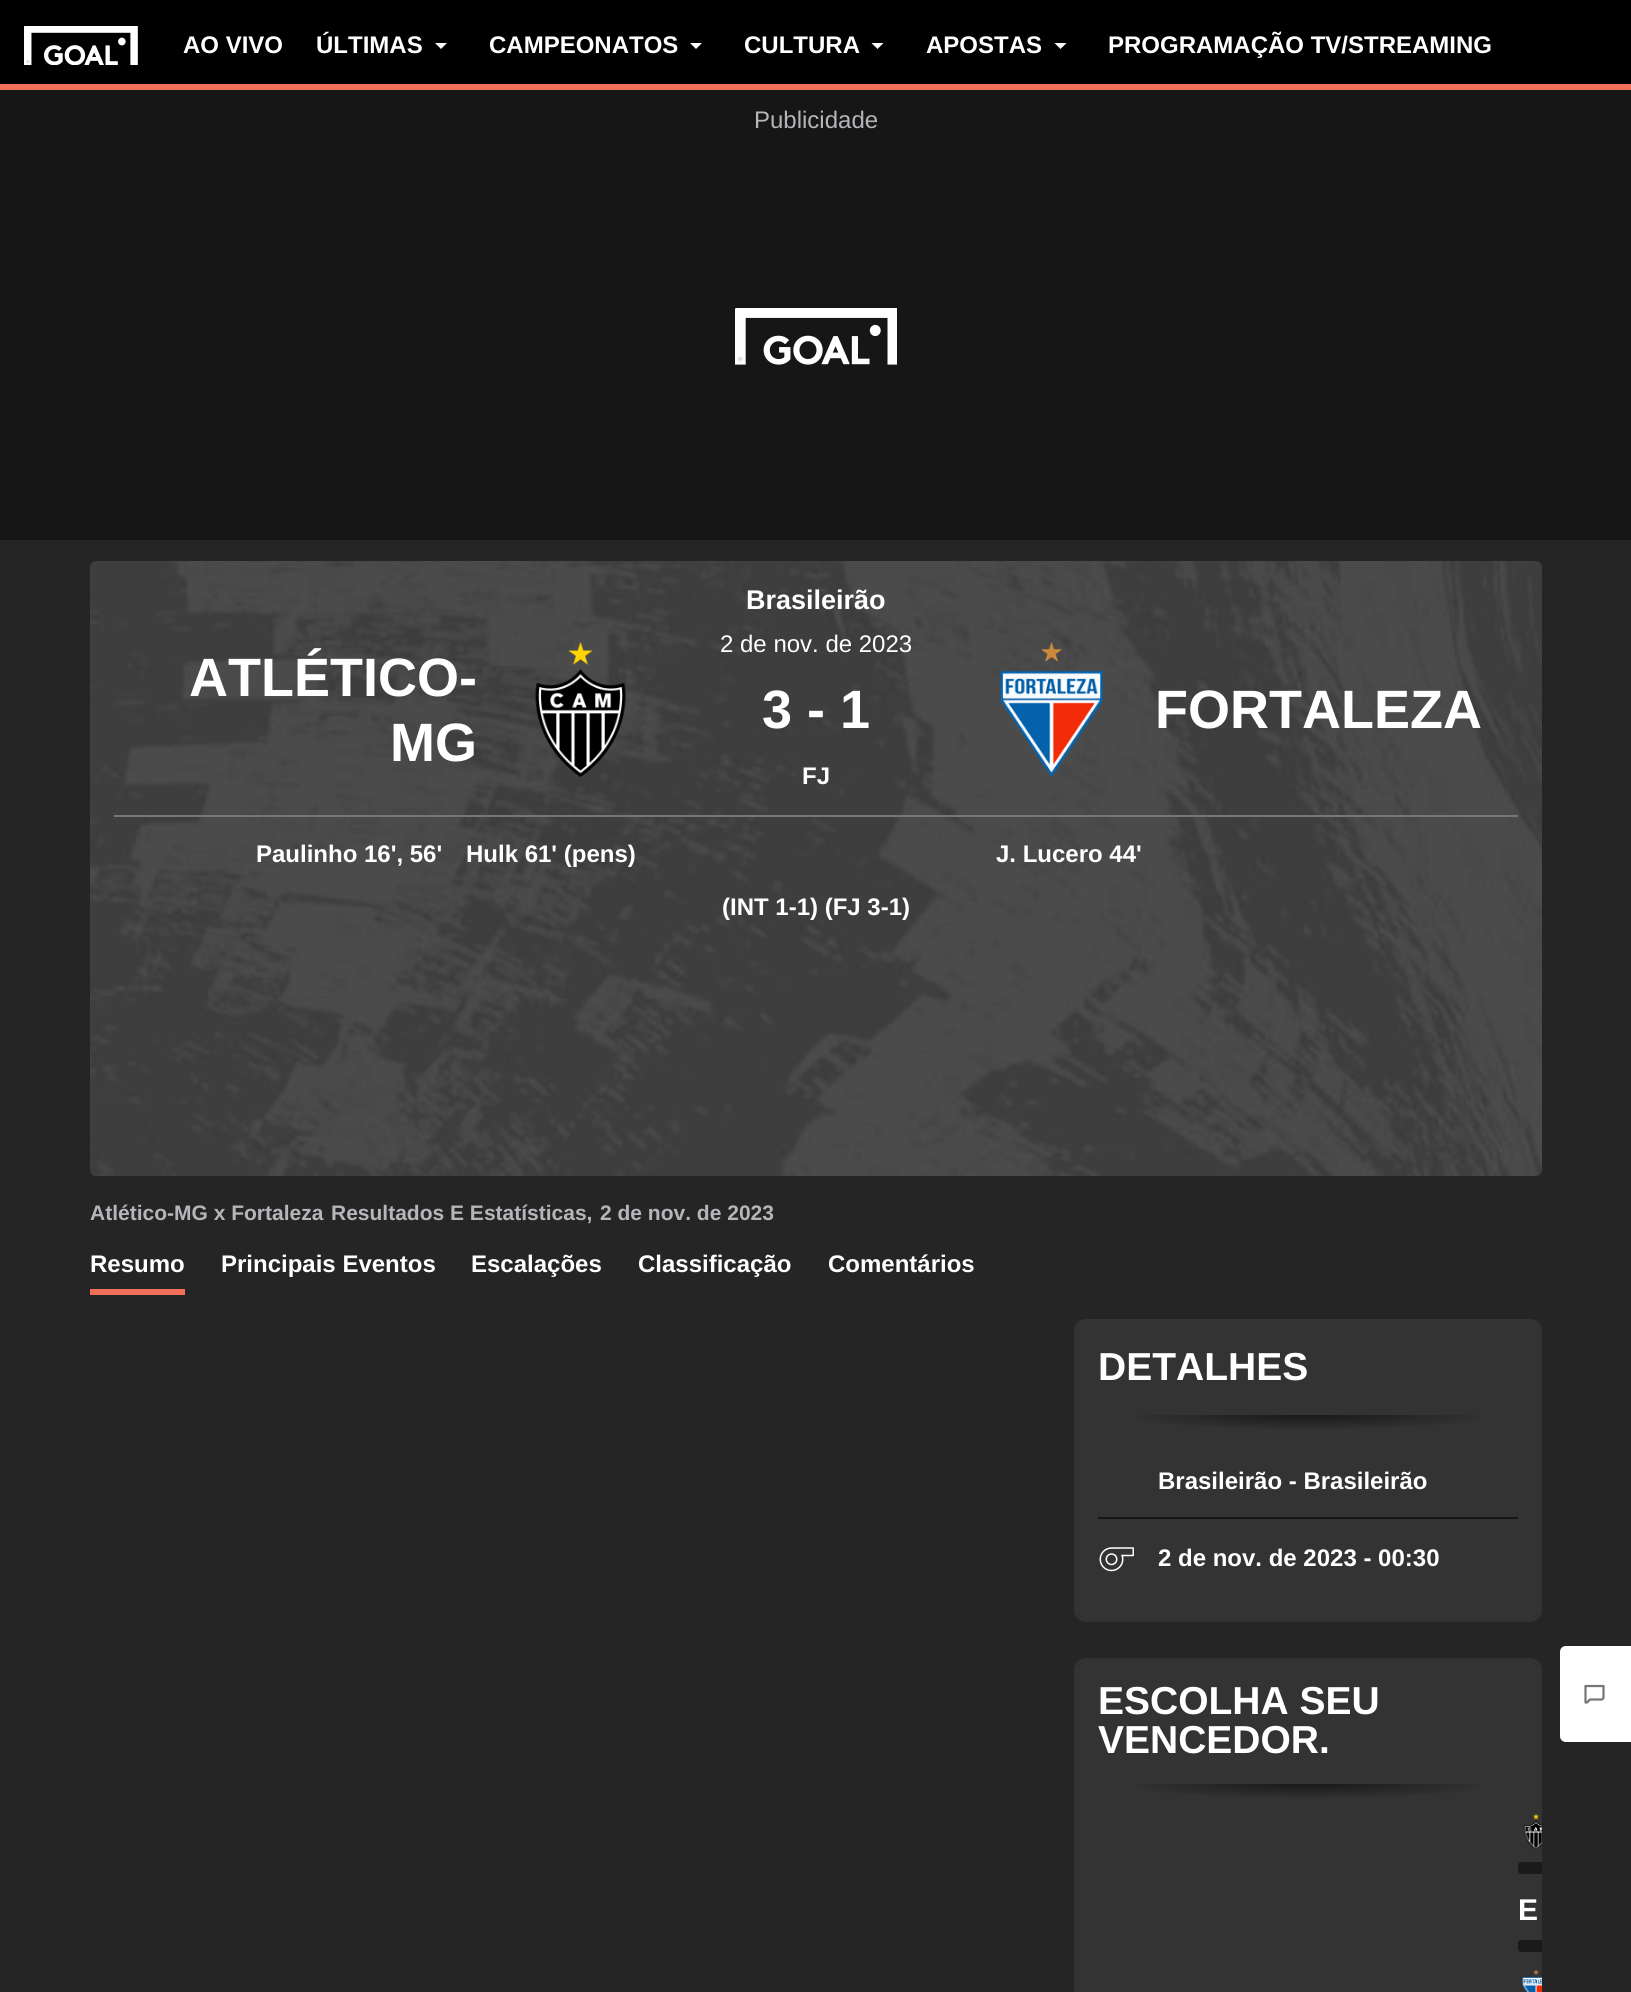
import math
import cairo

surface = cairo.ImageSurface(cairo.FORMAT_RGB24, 1631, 1992)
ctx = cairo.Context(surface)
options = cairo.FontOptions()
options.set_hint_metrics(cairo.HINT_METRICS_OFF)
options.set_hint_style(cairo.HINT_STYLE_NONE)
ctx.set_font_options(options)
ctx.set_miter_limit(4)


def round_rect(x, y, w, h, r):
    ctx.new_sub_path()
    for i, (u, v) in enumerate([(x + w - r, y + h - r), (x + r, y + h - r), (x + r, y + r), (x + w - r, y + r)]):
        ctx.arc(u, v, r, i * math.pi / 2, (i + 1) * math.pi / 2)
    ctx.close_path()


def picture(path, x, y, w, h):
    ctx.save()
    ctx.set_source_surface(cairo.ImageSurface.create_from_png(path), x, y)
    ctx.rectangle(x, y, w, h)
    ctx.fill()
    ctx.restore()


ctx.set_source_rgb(0.145, 0.145, 0.145)
ctx.paint()
ctx.set_source_rgb(0, 0, 0)
ctx.rectangle(0, 0, 1631, 84)
ctx.fill()
ctx.set_source_rgb(0.941, 0.439, 0.353)
ctx.rectangle(0, 84, 1631, 6)
ctx.fill()
picture("img1.png", 24, 26, 114, 39)
ctx.select_font_face("Liberation Sans", cairo.FONT_SLANT_NORMAL, cairo.FONT_WEIGHT_BOLD)
ctx.set_font_size(24)
ctx.set_source_rgb(1, 1, 1)
ctx.move_to(183, 53)
ctx.show_text("AO VIVO")
ctx.move_to(316, 53)
ctx.show_text("ÚLTIMAS")
ctx.new_path()
ctx.move_to(435, 43)
ctx.line_to(441, 49)
ctx.line_to(447, 43)
ctx.close_path()
ctx.fill()
ctx.move_to(489, 53)
ctx.show_text("CAMPEONATOS")
ctx.new_path()
ctx.move_to(690, 43)
ctx.line_to(696, 49)
ctx.line_to(702, 43)
ctx.close_path()
ctx.fill()
ctx.move_to(744, 53)
ctx.show_text("CULTURA")
ctx.new_path()
ctx.move_to(871.5, 43)
ctx.line_to(877.5, 49)
ctx.line_to(883.5, 43)
ctx.close_path()
ctx.fill()
ctx.move_to(926, 53)
ctx.show_text("APOSTAS")
ctx.new_path()
ctx.move_to(1054.5, 43)
ctx.line_to(1060.5, 49)
ctx.line_to(1066.5, 43)
ctx.close_path()
ctx.fill()
ctx.move_to(1108, 53)
ctx.show_text("PROGRAMAÇÃO TV/STREAMING")
ctx.set_source_rgb(0.086, 0.086, 0.09)
ctx.rectangle(0, 90, 1631, 450)
ctx.fill()
ctx.select_font_face("Liberation Sans")
ctx.set_source_rgb(0.71, 0.714, 0.729)
ctx.move_to(754, 128)
ctx.show_text("Publicidade")
picture("img2.png", 735, 308, 162, 57)
picture("img3.png", 90, 561, 1452, 615)
ctx.select_font_face("Liberation Sans", cairo.FONT_SLANT_NORMAL, cairo.FONT_WEIGHT_BOLD)
ctx.set_font_size(27)
ctx.set_source_rgb(1, 1, 1)
ctx.move_to(746, 609)
ctx.show_text("Brasileirão")
ctx.set_font_size(54)
ctx.move_to(189, 696)
ctx.show_text("ATLÉTICO-")
ctx.move_to(390, 761)
ctx.show_text("MG")
picture("img4.png", 535, 642, 91, 135)
ctx.select_font_face("Liberation Sans")
ctx.set_font_size(24)
ctx.move_to(720, 652)
ctx.show_text("2 de nov. de 2023")
ctx.select_font_face("Liberation Sans", cairo.FONT_SLANT_NORMAL, cairo.FONT_WEIGHT_BOLD)
ctx.set_font_size(54)
ctx.move_to(762, 728)
ctx.show_text("3 - 1")
ctx.set_font_size(24)
ctx.move_to(802, 784)
ctx.show_text("FJ")
picture("img5.png", 1000, 642, 103, 135)
ctx.set_font_size(54)
ctx.move_to(1155, 728)
ctx.show_text("FORTALEZA")
ctx.set_source_rgb(0.463, 0.463, 0.463)
ctx.rectangle(114, 815, 1404, 2)
ctx.fill()
ctx.set_font_size(24)
ctx.set_source_rgb(1, 1, 1)
ctx.move_to(256, 862)
ctx.show_text("Paulinho 16', 56'")
ctx.move_to(466, 862)
ctx.show_text("Hulk 61' (pens)")
ctx.move_to(996, 862)
ctx.show_text("J. Lucero 44'")
ctx.move_to(722, 915)
ctx.show_text("(INT 1-1) (FJ 3-1)")
ctx.set_font_size(21)
ctx.set_source_rgb(0.71, 0.714, 0.729)
ctx.move_to(90, 1220)
ctx.show_text("Atlético-MG x Fortaleza")
ctx.move_to(331, 1220)
ctx.show_text("Resultados E Estatísticas,")
ctx.move_to(600, 1220)
ctx.show_text("2 de nov. de 2023")
ctx.set_source_rgb(0.941, 0.439, 0.353)
ctx.rectangle(90, 1289, 95, 6)
ctx.fill()
ctx.set_font_size(24)
ctx.set_source_rgb(1, 1, 1)
ctx.move_to(90, 1272)
ctx.show_text("Resumo")
ctx.move_to(221, 1272)
ctx.show_text("Principais Eventos")
ctx.move_to(471, 1272)
ctx.show_text("Escalações")
ctx.move_to(638, 1272)
ctx.show_text("Classificação")
ctx.move_to(828, 1272)
ctx.show_text("Comentários")
ctx.set_source_rgb(0.2, 0.2, 0.2)
round_rect(1074, 1319, 468, 303, 12)
ctx.fill()
ctx.set_font_size(39)
ctx.set_source_rgb(1, 1, 1)
ctx.move_to(1098, 1380)
ctx.show_text("DETALHES")
gradient = cairo.RadialGradient(0, 0, 0, 0, 0, 1)
gradient.set_matrix(cairo.Matrix(1 / 378, 0, 0, 1 / 30, -1 * 1308 / 378, -1 * 1415 / 30))
gradient.add_color_stop_rgba(0, 0.098, 0.098, 0.098, 1)
gradient.add_color_stop_rgba(0.25, 0.149, 0.149, 0.149, 1)
gradient.add_color_stop_rgba(0.5, 0.2, 0.2, 0.2, 1)
ctx.set_source(gradient)
ctx.rectangle(1137, 1415, 342, 14)
ctx.fill()
ctx.set_font_size(24)
ctx.set_source_rgb(1, 1, 1)
ctx.move_to(1158, 1489)
ctx.show_text("Brasileirão - Brasileirão")
ctx.set_source_rgb(0.086, 0.086, 0.09)
ctx.rectangle(1098, 1517, 420, 2)
ctx.fill()
picture("img6.png", 1099, 1547, 35, 25)
ctx.set_source_rgb(1, 1, 1)
ctx.move_to(1158, 1566)
ctx.show_text("2 de nov. de 2023 - 00:30")
ctx.set_source_rgb(0.2, 0.2, 0.2)
round_rect(1074, 1658, 468, 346, 12)
ctx.fill()
ctx.set_font_size(39)
ctx.set_source_rgb(1, 1, 1)
ctx.move_to(1098, 1714)
ctx.show_text("ESCOLHA SEU")
ctx.move_to(1098, 1753)
ctx.show_text("VENCEDOR.")
gradient = cairo.RadialGradient(0, 0, 0, 0, 0, 1)
gradient.set_matrix(cairo.Matrix(1 / 378, 0, 0, 1 / 30, -1 * 1308 / 378, -1 * 1784 / 30))
gradient.add_color_stop_rgba(0, 0.098, 0.098, 0.098, 1)
gradient.add_color_stop_rgba(0.25, 0.149, 0.149, 0.149, 1)
gradient.add_color_stop_rgba(0.5, 0.2, 0.2, 0.2, 1)
ctx.set_source(gradient)
ctx.rectangle(1137, 1784, 342, 14)
ctx.fill()
picture("img7.png", 1523, 1814, 19, 36)
ctx.set_source_rgb(0.102, 0.102, 0.102)
ctx.new_path()
ctx.move_to(1521, 1862)
ctx.line_to(1542, 1862)
ctx.line_to(1542, 1874)
ctx.line_to(1521, 1874)
ctx.curve_to(1519.5, 1874, 1518, 1872.5, 1518, 1871)
ctx.line_to(1518, 1865)
ctx.curve_to(1518, 1863.5, 1519.5, 1862, 1521, 1862)
ctx.close_path()
ctx.fill()
ctx.set_font_size(30)
ctx.set_source_rgb(1, 1, 1)
ctx.move_to(1518, 1920)
ctx.show_text("E")
ctx.set_source_rgb(0.102, 0.102, 0.102)
ctx.new_path()
ctx.move_to(1521, 1940)
ctx.line_to(1542, 1940)
ctx.line_to(1542, 1952)
ctx.line_to(1521, 1952)
ctx.curve_to(1519.5, 1952, 1518, 1950.5, 1518, 1949)
ctx.line_to(1518, 1943)
ctx.curve_to(1518, 1941.5, 1519.5, 1940, 1521, 1940)
ctx.close_path()
ctx.fill()
picture("img8.png", 1521, 1969, 21, 23)
ctx.set_source_rgb(1, 1, 1)
ctx.new_path()
ctx.move_to(1566, 1646)
ctx.line_to(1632, 1646)
ctx.line_to(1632, 1742)
ctx.line_to(1566, 1742)
ctx.curve_to(1562.5, 1742, 1560, 1739.5, 1560, 1736)
ctx.line_to(1560, 1652)
ctx.curve_to(1560, 1648.5, 1562.5, 1646, 1566, 1646)
ctx.close_path()
ctx.fill()
picture("img9.png", 1584, 1684, 21, 20)
surface.write_to_png("page.png")
